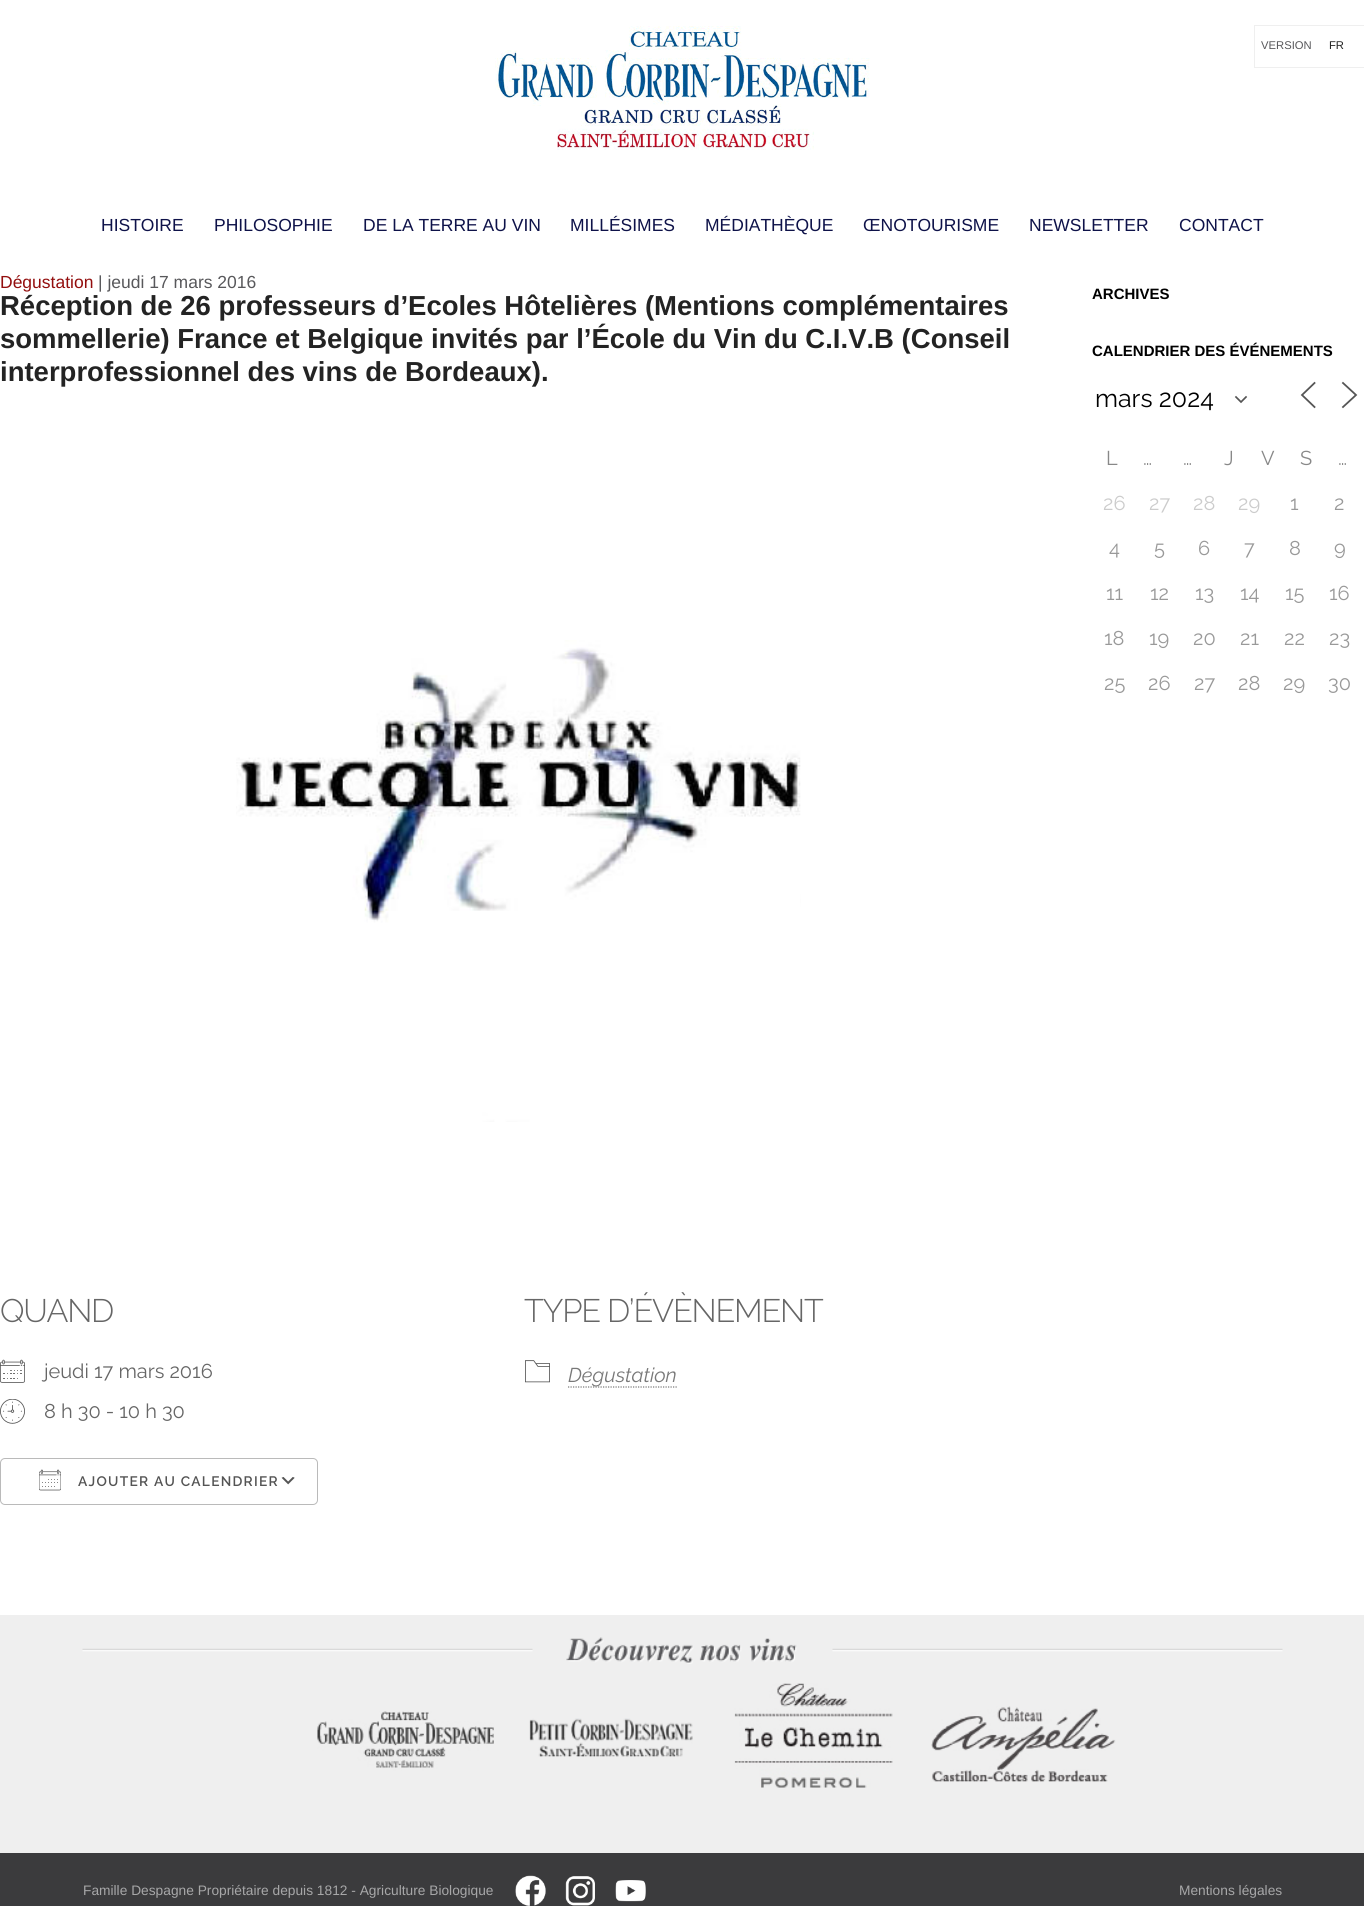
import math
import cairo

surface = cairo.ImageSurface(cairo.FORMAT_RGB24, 1364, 1906)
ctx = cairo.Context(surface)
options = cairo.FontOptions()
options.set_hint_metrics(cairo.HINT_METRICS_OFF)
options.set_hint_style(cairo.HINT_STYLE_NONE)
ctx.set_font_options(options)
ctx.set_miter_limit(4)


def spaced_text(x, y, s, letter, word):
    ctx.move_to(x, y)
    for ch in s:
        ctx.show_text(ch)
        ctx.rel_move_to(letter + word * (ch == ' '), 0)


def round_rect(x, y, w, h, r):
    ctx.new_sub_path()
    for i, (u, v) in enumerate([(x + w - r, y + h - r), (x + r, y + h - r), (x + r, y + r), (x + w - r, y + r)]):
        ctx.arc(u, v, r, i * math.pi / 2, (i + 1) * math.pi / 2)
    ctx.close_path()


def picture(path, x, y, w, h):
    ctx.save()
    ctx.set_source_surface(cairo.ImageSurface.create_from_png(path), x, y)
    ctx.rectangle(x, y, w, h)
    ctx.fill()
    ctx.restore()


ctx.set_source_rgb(1, 1, 1)
ctx.paint()
picture("img1.png", 495, 26, 375, 124)
ctx.rectangle(1254.5, 25.5, 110, 42)
ctx.set_source_rgb(0.937, 0.937, 0.937)
ctx.set_line_width(1)
ctx.stroke()
ctx.select_font_face("Liberation Sans")
ctx.set_font_size(11.25)
ctx.set_source_rgb(0.345, 0.345, 0.357)
ctx.move_to(1261, 49)
ctx.show_text("VERSION")
ctx.set_source_rgb(0.137, 0.137, 0.137)
ctx.move_to(1329, 49)
ctx.show_text("FR")
ctx.set_font_size(17.5)
ctx.set_source_rgb(0.055, 0.071, 0.286)
ctx.move_to(101, 231)
ctx.show_text("HISTOIRE")
ctx.move_to(214, 231)
ctx.show_text("PHILOSOPHIE")
ctx.move_to(363, 231)
ctx.show_text("DE LA TERRE AU VIN")
ctx.move_to(570, 231)
ctx.show_text("MILLÉSIMES")
ctx.move_to(705, 231)
ctx.show_text("MÉDIATHÈQUE")
ctx.move_to(863, 231)
ctx.show_text("ŒNOTOURISME")
ctx.move_to(1029, 231)
ctx.show_text("NEWSLETTER")
ctx.move_to(1179, 231)
ctx.show_text("CONTACT")
ctx.set_source_rgb(0.576, 0.055, 0.055)
ctx.move_to(0, 288)
ctx.show_text("Dégustation")
ctx.set_source_rgb(0.345, 0.345, 0.357)
ctx.move_to(98, 288)
ctx.show_text("| jeudi 17 mars 2016")
ctx.select_font_face("Liberation Sans", cairo.FONT_SLANT_NORMAL, cairo.FONT_WEIGHT_BOLD)
ctx.set_font_size(27.5)
ctx.set_source_rgb(0.137, 0.137, 0.137)
ctx.move_to(0, 315)
ctx.show_text("Réception de 26 professeurs d’Ecoles Hôtelières (Mentions complémentaires")
ctx.move_to(0, 348)
ctx.show_text("sommellerie) France et Belgique invités par l’École du Vin du C.I.V.B (Conseil")
ctx.move_to(0, 381)
ctx.show_text("interprofessionnel des vins de Bordeaux).")
picture("img2.png", 236, 640, 565, 482)
ctx.select_font_face("Raleway Light")
ctx.set_font_size(32.5)
ctx.set_source_rgb(0.4, 0.4, 0.4)
spaced_text(0, 1322, "QUAND", -1.25, 0)
picture("img3.png", 0, 1359, 25, 24)
ctx.select_font_face("Raleway")
ctx.set_font_size(20)
ctx.move_to(44, 1378)
ctx.show_text("jeudi 17 mars 2016")
picture("img4.png", 0, 1399, 25, 25)
ctx.move_to(44, 1418)
ctx.show_text("8 h 30 - 10 h 30")
picture("img5.png", 281, 1477, 14, 8)
round_rect(0.5, 1458.5, 317, 46, 4.5)
ctx.set_source_rgb(0.729, 0.729, 0.729)
ctx.stroke()
picture("img6.png", 39, 1469, 22, 22)
ctx.select_font_face("Raleway SemiBold")
ctx.set_font_size(13.75)
ctx.set_source_rgb(0.329, 0.329, 0.329)
spaced_text(78, 1486, "AJOUTER AU CALENDRIER", 1.25, 0)
ctx.select_font_face("Raleway Light")
ctx.set_font_size(32.5)
ctx.set_source_rgb(0.4, 0.4, 0.4)
spaced_text(524, 1322, "TYPE D’ÉVÈNEMENT", -1.25, 0)
picture("img7.png", 525, 1360, 25, 23)
ctx.new_path()
ctx.move_to(568, 1387)
ctx.line_to(677, 1387)
ctx.set_source_rgb(0.471, 0.471, 0.471)
ctx.set_line_width(1.2)
ctx.set_dash([1.25, 1.25])
ctx.stroke()
ctx.select_font_face("Raleway", cairo.FONT_SLANT_ITALIC)
ctx.set_font_size(20)
ctx.move_to(568, 1382)
ctx.show_text("Dégustation")
ctx.select_font_face("Liberation Sans", cairo.FONT_SLANT_NORMAL, cairo.FONT_WEIGHT_BOLD)
ctx.set_font_size(15)
ctx.set_source_rgb(0, 0, 0)
ctx.move_to(1092, 299)
ctx.show_text("ARCHIVES")
ctx.move_to(1092, 356)
ctx.show_text("CALENDRIER DES ÉVÉNEMENTS")
ctx.new_path()
ctx.move_to(1236, 397)
ctx.line_to(1241, 402)
ctx.line_to(1246, 397)
ctx.set_source_rgb(0.333, 0.333, 0.333)
ctx.set_line_width(1.7)
ctx.set_line_cap(cairo.LINE_CAP_SQUARE)
ctx.set_dash([])
ctx.stroke()
ctx.select_font_face("Raleway")
ctx.set_font_size(25)
ctx.set_source_rgb(0, 0, 0)
ctx.move_to(1095, 407)
ctx.show_text("mars 2024")
ctx.new_path()
ctx.move_to(1314.5, 407)
ctx.line_to(1302, 395)
ctx.line_to(1314.5, 383)
ctx.move_to(1343, 407)
ctx.line_to(1356, 395)
ctx.line_to(1343, 383)
ctx.set_source_rgb(0.333, 0.333, 0.333)
ctx.set_line_width(1.8)
ctx.stroke()
ctx.set_font_size(20)
ctx.set_source_rgb(0.533, 0.533, 0.533)
ctx.move_to(1106, 465)
ctx.show_text("L")
ctx.move_to(1143, 465)
ctx.show_text("…")
ctx.move_to(1183, 465)
ctx.show_text("…")
ctx.move_to(1224, 465)
ctx.show_text("J")
ctx.move_to(1261, 465)
ctx.show_text("V")
ctx.move_to(1300, 465)
ctx.show_text("S")
ctx.move_to(1338, 465)
ctx.show_text("…")
ctx.set_source_rgb(0.8, 0.8, 0.8)
ctx.move_to(1103, 510)
ctx.show_text("26")
ctx.move_to(1149, 510)
ctx.show_text("27")
ctx.move_to(1193, 510)
ctx.show_text("28")
ctx.move_to(1238, 510)
ctx.show_text("29")
ctx.set_source_rgb(0.6, 0.6, 0.6)
ctx.move_to(1290, 510)
ctx.show_text("1")
ctx.move_to(1334, 510)
ctx.show_text("2")
ctx.move_to(1109, 555)
ctx.show_text("4")
ctx.move_to(1154, 555)
ctx.show_text("5")
ctx.move_to(1198, 555)
ctx.show_text("6")
ctx.move_to(1244, 555)
ctx.show_text("7")
ctx.move_to(1289, 555)
ctx.show_text("8")
ctx.move_to(1334, 555)
ctx.show_text("9")
ctx.move_to(1106, 600)
ctx.show_text("11")
ctx.move_to(1150, 600)
ctx.show_text("12")
ctx.move_to(1195, 600)
ctx.show_text("13")
ctx.move_to(1240, 600)
ctx.show_text("14")
ctx.move_to(1285, 600)
ctx.show_text("15")
ctx.move_to(1329, 600)
ctx.show_text("16")
ctx.move_to(1104, 645)
ctx.show_text("18")
ctx.move_to(1149, 645)
ctx.show_text("19")
ctx.move_to(1193, 645)
ctx.show_text("20")
ctx.move_to(1240, 645)
ctx.show_text("21")
ctx.move_to(1284, 645)
ctx.show_text("22")
ctx.move_to(1329, 645)
ctx.show_text("23")
ctx.move_to(1104, 690)
ctx.show_text("25")
ctx.move_to(1148, 690)
ctx.show_text("26")
ctx.move_to(1194, 690)
ctx.show_text("27")
ctx.move_to(1238, 690)
ctx.show_text("28")
ctx.move_to(1283, 690)
ctx.show_text("29")
ctx.move_to(1328, 690)
ctx.show_text("30")
ctx.set_source_rgb(0.937, 0.937, 0.937)
ctx.rectangle(0, 1615, 1364, 238)
ctx.fill()
picture("img8.png", 82, 1648, 1201, 4)
picture("img9.png", 532, 1637, 301, 27)
picture("img10.png", 317, 1711, 177, 64)
picture("img11.png", 529, 1718, 164, 1)
picture("img12.png", 529, 1719, 164, 39)
picture("img13.png", 734, 1683, 159, 105)
picture("img14.png", 761, 1777, 106, 11)
picture("img15.png", 931, 1706, 185, 76)
ctx.set_source_rgb(0.231, 0.231, 0.239)
ctx.rectangle(0, 1853, 1364, 53)
ctx.fill()
ctx.select_font_face("Liberation Sans")
ctx.set_font_size(13.75)
ctx.set_source_rgb(0.655, 0.655, 0.659)
ctx.move_to(83, 1895)
ctx.show_text("Famille Despagne Propriétaire depuis 1812 - Agriculture Biologique")
picture("img16.png", 515, 1875, 31, 31)
picture("img17.png", 565, 1876, 30, 30)
picture("img18.png", 615, 1880, 31, 22)
ctx.move_to(1179, 1895)
ctx.show_text("Mentions légales")
surface.write_to_png("page.png")
